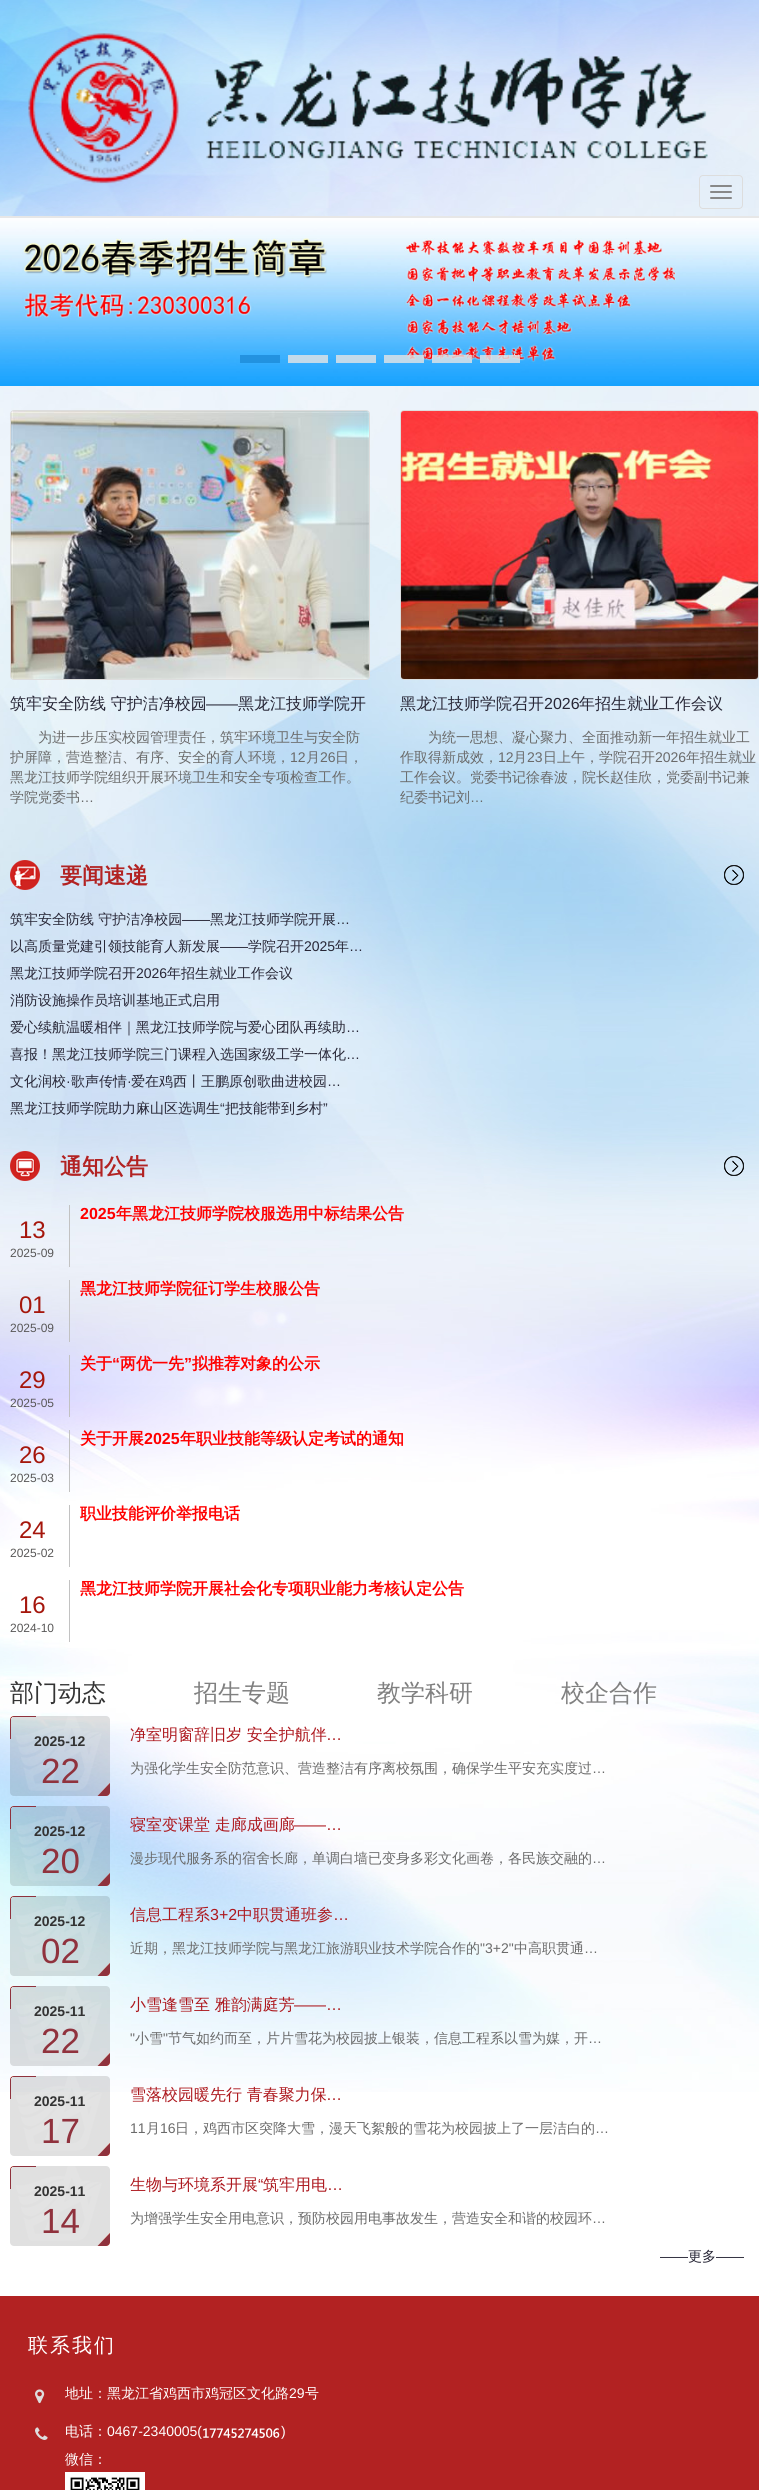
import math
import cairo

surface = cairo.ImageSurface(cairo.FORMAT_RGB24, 759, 2490)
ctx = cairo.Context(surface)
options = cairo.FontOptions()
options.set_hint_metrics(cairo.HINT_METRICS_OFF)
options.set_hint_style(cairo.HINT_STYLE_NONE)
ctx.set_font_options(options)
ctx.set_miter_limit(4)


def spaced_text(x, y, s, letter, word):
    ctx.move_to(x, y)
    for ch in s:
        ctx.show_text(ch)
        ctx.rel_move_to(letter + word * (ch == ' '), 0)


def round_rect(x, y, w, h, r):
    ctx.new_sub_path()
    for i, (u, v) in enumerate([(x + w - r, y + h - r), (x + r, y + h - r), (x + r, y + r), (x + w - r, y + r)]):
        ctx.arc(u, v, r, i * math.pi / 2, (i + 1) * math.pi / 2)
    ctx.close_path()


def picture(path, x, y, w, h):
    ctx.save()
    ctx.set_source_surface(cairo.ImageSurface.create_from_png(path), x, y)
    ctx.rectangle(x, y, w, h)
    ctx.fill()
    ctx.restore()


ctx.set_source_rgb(1, 1, 1)
ctx.paint()
picture("img1.png", 0, 0, 759, 2092)
picture("img2.png", 28, 33, 680, 151)
ctx.set_source_rgb(0.906, 0.906, 0.906)
ctx.rectangle(0, 216, 759, 2)
ctx.fill()
round_rect(699.5, 175.5, 43, 33, 3.5)
ctx.set_source_rgb(0.867, 0.867, 0.867)
ctx.set_line_width(1)
ctx.stroke()
ctx.set_source_rgb(0.533, 0.533, 0.533)
round_rect(710, 185, 22, 2, 1)
ctx.fill()
round_rect(710, 191, 22, 2, 1)
ctx.fill()
round_rect(710, 197, 22, 2, 1)
ctx.fill()
picture("img3.png", 0, 218, 759, 168)
ctx.set_source_rgba(0.114, 0.545, 0.847, 0.8)
ctx.rectangle(240, 355, 40, 8)
ctx.fill()
ctx.set_source_rgba(0.898, 0.898, 0.898, 0.8)
ctx.rectangle(288, 355, 40, 8)
ctx.fill()
ctx.rectangle(336, 355, 40, 8)
ctx.fill()
ctx.rectangle(384, 355, 40, 8)
ctx.fill()
ctx.rectangle(432, 355, 40, 8)
ctx.fill()
ctx.rectangle(480, 355, 40, 8)
ctx.fill()
round_rect(10.5, 410.5, 359, 269, 3.5)
ctx.set_source_rgb(0.867, 0.867, 0.867)
ctx.stroke()
picture("img4.png", 11, 411, 358, 268)
ctx.select_font_face("WenQuanYi Zen Hei Medium")
ctx.set_font_size(16)
ctx.set_source_rgb(0.153, 0.149, 0.212)
ctx.move_to(10, 709)
ctx.show_text("筑牢安全防线 守护洁净校园")
ctx.select_font_face("Liberation Sans")
ctx.move_to(206, 709)
ctx.show_text("——")
ctx.select_font_face("WenQuanYi Zen Hei Medium")
ctx.move_to(238, 709)
ctx.show_text("黑龙江技师学院开")
ctx.set_font_size(14)
ctx.set_source_rgb(0.416, 0.416, 0.416)
ctx.move_to(38, 742)
ctx.show_text("为进一步压实校园管理责任，筑牢环境卫生与安全防")
ctx.move_to(10, 762)
ctx.show_text("护屏障，营造整洁、有序、安全的育人环境，")
ctx.select_font_face("Liberation Sans")
ctx.move_to(290, 762)
ctx.show_text("12")
ctx.select_font_face("WenQuanYi Zen Hei Medium")
ctx.move_to(306, 762)
ctx.show_text("月")
ctx.select_font_face("Liberation Sans")
ctx.move_to(320, 762)
ctx.show_text("26")
ctx.select_font_face("WenQuanYi Zen Hei Medium")
ctx.move_to(335, 762)
ctx.show_text("日，")
ctx.move_to(10, 782)
ctx.show_text("黑龙江技师学院组织开展环境卫生和安全专项检查工作。")
ctx.move_to(10, 802)
ctx.show_text("学院党委书")
ctx.select_font_face("Liberation Sans")
ctx.move_to(80, 802)
ctx.show_text("…")
round_rect(400.5, 410.5, 358, 269, 3.5)
ctx.set_source_rgb(0.867, 0.867, 0.867)
ctx.stroke()
picture("img5.png", 401, 411, 357, 268)
ctx.select_font_face("WenQuanYi Zen Hei Medium")
ctx.set_font_size(16)
ctx.set_source_rgb(0.153, 0.149, 0.212)
ctx.move_to(400, 709)
ctx.show_text("黑龙江技师学院召开")
ctx.select_font_face("Liberation Sans")
ctx.move_to(544, 709)
ctx.show_text("2026")
ctx.select_font_face("WenQuanYi Zen Hei Medium")
ctx.move_to(579, 709)
ctx.show_text("年招生就业工作会议")
ctx.set_font_size(14)
ctx.set_source_rgb(0.416, 0.416, 0.416)
ctx.move_to(428, 742)
ctx.show_text("为统一思想、凝心聚力、全面推动新一年招生就业工")
ctx.move_to(400, 762)
ctx.show_text("作取得新成效，")
ctx.select_font_face("Liberation Sans")
ctx.move_to(498, 762)
ctx.show_text("12")
ctx.select_font_face("WenQuanYi Zen Hei Medium")
ctx.move_to(513, 762)
ctx.show_text("月")
ctx.select_font_face("Liberation Sans")
ctx.move_to(527, 762)
ctx.show_text("23")
ctx.select_font_face("WenQuanYi Zen Hei Medium")
ctx.move_to(543, 762)
ctx.show_text("日上午，学院召开")
ctx.select_font_face("Liberation Sans")
ctx.move_to(655, 762)
ctx.show_text("2026")
ctx.select_font_face("WenQuanYi Zen Hei Medium")
ctx.move_to(686, 762)
ctx.show_text("年招生就业")
ctx.move_to(400, 782)
ctx.show_text("工作会议。党委书记徐春波，院长赵佳欣，党委副书记兼")
ctx.move_to(400, 802)
ctx.show_text("纪委书记刘")
ctx.select_font_face("Liberation Sans")
ctx.move_to(470, 802)
ctx.show_text("…")
picture("img6.png", 10, 860, 30, 30)
ctx.select_font_face("WenQuanYi Zen Hei", cairo.FONT_SLANT_NORMAL, cairo.FONT_WEIGHT_BOLD)
ctx.set_font_size(22)
ctx.set_source_rgb(0.698, 0.133, 0.133)
ctx.move_to(60, 883)
ctx.show_text("要闻速递")
picture("img7.png", 724, 865, 20, 20)
ctx.select_font_face("WenQuanYi Zen Hei Medium")
ctx.set_font_size(14)
ctx.set_source_rgb(0.153, 0.149, 0.212)
ctx.move_to(10, 924)
ctx.show_text("筑牢安全防线 守护洁净校园")
ctx.select_font_face("Liberation Sans")
ctx.move_to(182, 924)
ctx.show_text("——")
ctx.select_font_face("WenQuanYi Zen Hei Medium")
ctx.move_to(210, 924)
ctx.show_text("黑龙江技师学院开展")
ctx.select_font_face("Liberation Sans")
ctx.move_to(336, 924)
ctx.show_text("…")
ctx.select_font_face("WenQuanYi Zen Hei Medium")
ctx.move_to(10, 951)
ctx.show_text("以高质量党建引领技能育人新发展")
ctx.select_font_face("Liberation Sans")
ctx.move_to(220, 951)
ctx.show_text("——")
ctx.select_font_face("WenQuanYi Zen Hei Medium")
ctx.move_to(248, 951)
ctx.show_text("学院召开")
ctx.select_font_face("Liberation Sans")
ctx.move_to(304, 951)
ctx.show_text("2025")
ctx.select_font_face("WenQuanYi Zen Hei Medium")
ctx.move_to(335, 951)
ctx.show_text("年")
ctx.select_font_face("Liberation Sans")
ctx.move_to(349, 951)
ctx.show_text("…")
ctx.select_font_face("WenQuanYi Zen Hei Medium")
ctx.move_to(10, 978)
ctx.show_text("黑龙江技师学院召开")
ctx.select_font_face("Liberation Sans")
ctx.move_to(136, 978)
ctx.show_text("2026")
ctx.select_font_face("WenQuanYi Zen Hei Medium")
ctx.move_to(167, 978)
ctx.show_text("年招生就业工作会议")
ctx.move_to(10, 1005)
ctx.show_text("消防设施操作员培训基地正式启用")
ctx.move_to(10, 1032)
ctx.show_text("爱心续航温暖相伴｜黑龙江技师学院与爱心团队再续助")
ctx.select_font_face("Liberation Sans")
ctx.move_to(346, 1032)
ctx.show_text("…")
ctx.select_font_face("WenQuanYi Zen Hei Medium")
ctx.move_to(10, 1059)
ctx.show_text("喜报！黑龙江技师学院三门课程入选国家级工学一体化")
ctx.select_font_face("Liberation Sans")
ctx.move_to(346, 1059)
ctx.show_text("…")
ctx.select_font_face("WenQuanYi Zen Hei Medium")
ctx.move_to(10, 1086)
ctx.show_text("文化润校")
ctx.select_font_face("Liberation Sans")
ctx.move_to(66, 1086)
ctx.show_text("·")
ctx.select_font_face("WenQuanYi Zen Hei Medium")
ctx.move_to(71, 1086)
ctx.show_text("歌声传情")
ctx.select_font_face("Liberation Sans")
ctx.move_to(127, 1086)
ctx.show_text("·")
ctx.select_font_face("WenQuanYi Zen Hei Medium")
ctx.move_to(131, 1086)
ctx.show_text("爱在鸡西丨王鹏原创歌曲进校园")
ctx.select_font_face("Liberation Sans")
ctx.move_to(327, 1086)
ctx.show_text("…")
ctx.select_font_face("WenQuanYi Zen Hei Medium")
ctx.move_to(10, 1113)
ctx.show_text("黑龙江技师学院助力麻山区选调生")
ctx.select_font_face("Liberation Sans")
ctx.move_to(220, 1113)
ctx.show_text("“")
ctx.select_font_face("WenQuanYi Zen Hei Medium")
ctx.move_to(225, 1113)
ctx.show_text("把技能带到乡村")
ctx.select_font_face("Liberation Sans")
ctx.move_to(323, 1113)
ctx.show_text("”")
picture("img8.png", 10, 1151, 30, 30)
ctx.select_font_face("WenQuanYi Zen Hei", cairo.FONT_SLANT_NORMAL, cairo.FONT_WEIGHT_BOLD)
ctx.set_font_size(22)
ctx.set_source_rgb(0.698, 0.133, 0.133)
ctx.move_to(60, 1174)
ctx.show_text("通知公告")
picture("img9.png", 724, 1156, 20, 20)
ctx.select_font_face("Liberation Sans", cairo.FONT_SLANT_NORMAL, cairo.FONT_WEIGHT_BOLD)
ctx.set_font_size(16)
ctx.set_source_rgb(1, 0, 0)
ctx.move_to(80, 1219)
ctx.show_text("2025")
ctx.select_font_face("WenQuanYi Zen Hei", cairo.FONT_SLANT_NORMAL, cairo.FONT_WEIGHT_BOLD)
ctx.move_to(116, 1219)
ctx.show_text("年黑龙江技师学院校服选用中标结果公告")
ctx.set_source_rgb(0.761, 0.761, 0.761)
ctx.rectangle(69, 1205, 1, 62)
ctx.fill()
ctx.select_font_face("Liberation Sans")
ctx.set_font_size(24)
ctx.set_source_rgb(0.647, 0.086, 0.047)
ctx.move_to(19, 1238)
ctx.show_text("13")
ctx.set_font_size(12)
ctx.set_source_rgb(0.349, 0.345, 0.345)
ctx.move_to(10, 1257)
ctx.show_text("2025-09")
ctx.select_font_face("WenQuanYi Zen Hei", cairo.FONT_SLANT_NORMAL, cairo.FONT_WEIGHT_BOLD)
ctx.set_font_size(16)
ctx.set_source_rgb(1, 0, 0)
ctx.move_to(80, 1294)
ctx.show_text("黑龙江技师学院征订学生校服公告")
ctx.set_source_rgb(0.761, 0.761, 0.761)
ctx.rectangle(69, 1280, 1, 62)
ctx.fill()
ctx.select_font_face("Liberation Sans")
ctx.set_font_size(24)
ctx.set_source_rgb(0.647, 0.086, 0.047)
ctx.move_to(19, 1313)
ctx.show_text("01")
ctx.set_font_size(12)
ctx.set_source_rgb(0.349, 0.345, 0.345)
ctx.move_to(10, 1332)
ctx.show_text("2025-09")
ctx.select_font_face("WenQuanYi Zen Hei", cairo.FONT_SLANT_NORMAL, cairo.FONT_WEIGHT_BOLD)
ctx.set_font_size(16)
ctx.set_source_rgb(1, 0, 0)
ctx.move_to(80, 1369)
ctx.show_text("关于")
ctx.select_font_face("Liberation Sans", cairo.FONT_SLANT_NORMAL, cairo.FONT_WEIGHT_BOLD)
ctx.move_to(112, 1369)
ctx.show_text("“")
ctx.select_font_face("WenQuanYi Zen Hei", cairo.FONT_SLANT_NORMAL, cairo.FONT_WEIGHT_BOLD)
ctx.move_to(120, 1369)
ctx.show_text("两优一先")
ctx.select_font_face("Liberation Sans", cairo.FONT_SLANT_NORMAL, cairo.FONT_WEIGHT_BOLD)
ctx.move_to(184, 1369)
ctx.show_text("”")
ctx.select_font_face("WenQuanYi Zen Hei", cairo.FONT_SLANT_NORMAL, cairo.FONT_WEIGHT_BOLD)
ctx.move_to(192, 1369)
ctx.show_text("拟推荐对象的公示")
ctx.set_source_rgb(0.761, 0.761, 0.761)
ctx.rectangle(69, 1355, 1, 62)
ctx.fill()
ctx.select_font_face("Liberation Sans")
ctx.set_font_size(24)
ctx.set_source_rgb(0.647, 0.086, 0.047)
ctx.move_to(19, 1388)
ctx.show_text("29")
ctx.set_font_size(12)
ctx.set_source_rgb(0.349, 0.345, 0.345)
ctx.move_to(10, 1407)
ctx.show_text("2025-05")
ctx.select_font_face("WenQuanYi Zen Hei", cairo.FONT_SLANT_NORMAL, cairo.FONT_WEIGHT_BOLD)
ctx.set_font_size(16)
ctx.set_source_rgb(1, 0, 0)
ctx.move_to(80, 1444)
ctx.show_text("关于开展")
ctx.select_font_face("Liberation Sans", cairo.FONT_SLANT_NORMAL, cairo.FONT_WEIGHT_BOLD)
ctx.move_to(144, 1444)
ctx.show_text("2025")
ctx.select_font_face("WenQuanYi Zen Hei", cairo.FONT_SLANT_NORMAL, cairo.FONT_WEIGHT_BOLD)
ctx.move_to(180, 1444)
ctx.show_text("年职业技能等级认定考试的通知")
ctx.set_source_rgb(0.761, 0.761, 0.761)
ctx.rectangle(69, 1430, 1, 62)
ctx.fill()
ctx.select_font_face("Liberation Sans")
ctx.set_font_size(24)
ctx.set_source_rgb(0.647, 0.086, 0.047)
ctx.move_to(19, 1463)
ctx.show_text("26")
ctx.set_font_size(12)
ctx.set_source_rgb(0.349, 0.345, 0.345)
ctx.move_to(10, 1482)
ctx.show_text("2025-03")
ctx.select_font_face("WenQuanYi Zen Hei", cairo.FONT_SLANT_NORMAL, cairo.FONT_WEIGHT_BOLD)
ctx.set_font_size(16)
ctx.set_source_rgb(1, 0, 0)
ctx.move_to(80, 1519)
ctx.show_text("职业技能评价举报电话")
ctx.set_source_rgb(0.761, 0.761, 0.761)
ctx.rectangle(69, 1505, 1, 62)
ctx.fill()
ctx.select_font_face("Liberation Sans")
ctx.set_font_size(24)
ctx.set_source_rgb(0.647, 0.086, 0.047)
ctx.move_to(19, 1538)
ctx.show_text("24")
ctx.set_font_size(12)
ctx.set_source_rgb(0.349, 0.345, 0.345)
ctx.move_to(10, 1557)
ctx.show_text("2025-02")
ctx.select_font_face("WenQuanYi Zen Hei", cairo.FONT_SLANT_NORMAL, cairo.FONT_WEIGHT_BOLD)
ctx.set_font_size(16)
ctx.set_source_rgb(1, 0, 0)
ctx.move_to(80, 1594)
ctx.show_text("黑龙江技师学院开展社会化专项职业能力考核认定公告")
ctx.set_source_rgb(0.761, 0.761, 0.761)
ctx.rectangle(69, 1580, 1, 62)
ctx.fill()
ctx.select_font_face("Liberation Sans")
ctx.set_font_size(24)
ctx.set_source_rgb(0.647, 0.086, 0.047)
ctx.move_to(19, 1613)
ctx.show_text("16")
ctx.set_font_size(12)
ctx.set_source_rgb(0.349, 0.345, 0.345)
ctx.move_to(10, 1632)
ctx.show_text("2024-10")
ctx.select_font_face("WenQuanYi Zen Hei Medium")
ctx.set_font_size(24)
ctx.set_source_rgb(0.2, 0.2, 0.2)
ctx.move_to(10, 1701)
ctx.show_text("部门动态")
ctx.set_source_rgb(0.502, 0.502, 0.502)
ctx.move_to(194, 1701)
ctx.show_text("招生专题")
ctx.move_to(377, 1701)
ctx.show_text("教学科研")
ctx.move_to(561, 1701)
ctx.show_text("校企合作")
picture("img10.png", 10, 1716, 100, 80)
ctx.select_font_face("Liberation Sans", cairo.FONT_SLANT_NORMAL, cairo.FONT_WEIGHT_BOLD)
ctx.set_font_size(14)
ctx.set_source_rgb(0.2, 0.2, 0.2)
ctx.move_to(34, 1746)
ctx.show_text("2025-12")
ctx.select_font_face("Liberation Sans")
ctx.set_font_size(35)
ctx.set_source_rgb(0.565, 0.196, 0.239)
ctx.move_to(41, 1783)
ctx.show_text("22")
ctx.select_font_face("WenQuanYi Zen Hei Medium")
ctx.set_font_size(16)
ctx.set_source_rgb(0.678, 0.094, 0.118)
ctx.move_to(130, 1740)
ctx.show_text("净室明窗辞旧岁 安全护航伴")
ctx.select_font_face("Liberation Sans")
ctx.move_to(326, 1740)
ctx.show_text("…")
ctx.select_font_face("WenQuanYi Zen Hei Medium")
ctx.set_font_size(14)
ctx.set_source_rgb(0.416, 0.416, 0.416)
ctx.move_to(130, 1773)
ctx.show_text("为强化学生安全防范意识、营造整洁有序离校氛围，确保学生平安充实度过")
ctx.select_font_face("Liberation Sans")
ctx.move_to(592, 1773)
ctx.show_text("…")
picture("img11.png", 10, 1806, 100, 80)
ctx.select_font_face("Liberation Sans", cairo.FONT_SLANT_NORMAL, cairo.FONT_WEIGHT_BOLD)
ctx.set_source_rgb(0.2, 0.2, 0.2)
ctx.move_to(34, 1836)
ctx.show_text("2025-12")
ctx.select_font_face("Liberation Sans")
ctx.set_font_size(35)
ctx.set_source_rgb(0.565, 0.196, 0.239)
ctx.move_to(41, 1873)
ctx.show_text("20")
ctx.select_font_face("WenQuanYi Zen Hei Medium")
ctx.set_font_size(16)
ctx.set_source_rgb(0.678, 0.094, 0.118)
ctx.move_to(130, 1830)
ctx.show_text("寝室变课堂 走廊成画廊")
ctx.select_font_face("Liberation Sans")
ctx.move_to(294, 1830)
ctx.show_text("——…")
ctx.select_font_face("WenQuanYi Zen Hei Medium")
ctx.set_font_size(14)
ctx.set_source_rgb(0.416, 0.416, 0.416)
ctx.move_to(130, 1863)
ctx.show_text("漫步现代服务系的宿舍长廊，单调白墙已变身多彩文化画卷，各民族交融的")
ctx.select_font_face("Liberation Sans")
ctx.move_to(592, 1863)
ctx.show_text("…")
picture("img12.png", 10, 1896, 100, 80)
ctx.select_font_face("Liberation Sans", cairo.FONT_SLANT_NORMAL, cairo.FONT_WEIGHT_BOLD)
ctx.set_source_rgb(0.2, 0.2, 0.2)
ctx.move_to(34, 1926)
ctx.show_text("2025-12")
ctx.select_font_face("Liberation Sans")
ctx.set_font_size(35)
ctx.set_source_rgb(0.565, 0.196, 0.239)
ctx.move_to(41, 1963)
ctx.show_text("02")
ctx.select_font_face("WenQuanYi Zen Hei Medium")
ctx.set_font_size(16)
ctx.set_source_rgb(0.678, 0.094, 0.118)
ctx.move_to(130, 1920)
ctx.show_text("信息工程系")
ctx.select_font_face("Liberation Sans")
ctx.move_to(210, 1920)
ctx.show_text("3+2")
ctx.select_font_face("WenQuanYi Zen Hei Medium")
ctx.move_to(237, 1920)
ctx.show_text("中职贯通班参")
ctx.select_font_face("Liberation Sans")
ctx.move_to(333, 1920)
ctx.show_text("…")
ctx.select_font_face("WenQuanYi Zen Hei Medium")
ctx.set_font_size(14)
ctx.set_source_rgb(0.416, 0.416, 0.416)
ctx.move_to(130, 1953)
ctx.show_text("近期，黑龙江技师学院与黑龙江旅游职业技术学院合作的")
ctx.select_font_face("Liberation Sans")
ctx.move_to(480, 1953)
ctx.show_text("\"3+2\"")
ctx.select_font_face("WenQuanYi Zen Hei Medium")
ctx.move_to(514, 1953)
ctx.show_text("中高职贯通")
ctx.select_font_face("Liberation Sans")
ctx.move_to(584, 1953)
ctx.show_text("…")
picture("img13.png", 10, 1986, 100, 80)
ctx.select_font_face("Liberation Sans", cairo.FONT_SLANT_NORMAL, cairo.FONT_WEIGHT_BOLD)
ctx.set_source_rgb(0.2, 0.2, 0.2)
ctx.move_to(34, 2016)
ctx.show_text("2025-11")
ctx.select_font_face("Liberation Sans")
ctx.set_font_size(35)
ctx.set_source_rgb(0.565, 0.196, 0.239)
ctx.move_to(41, 2053)
ctx.show_text("22")
ctx.select_font_face("WenQuanYi Zen Hei Medium")
ctx.set_font_size(16)
ctx.set_source_rgb(0.678, 0.094, 0.118)
ctx.move_to(130, 2010)
ctx.show_text("小雪逢雪至 雅韵满庭芳")
ctx.select_font_face("Liberation Sans")
ctx.move_to(294, 2010)
ctx.show_text("——…")
ctx.set_font_size(14)
ctx.set_source_rgb(0.416, 0.416, 0.416)
ctx.move_to(130, 2043)
ctx.show_text("\"")
ctx.select_font_face("WenQuanYi Zen Hei Medium")
ctx.move_to(135, 2043)
ctx.show_text("小雪")
ctx.select_font_face("Liberation Sans")
ctx.move_to(163, 2043)
ctx.show_text("\"")
ctx.select_font_face("WenQuanYi Zen Hei Medium")
ctx.move_to(168, 2043)
ctx.show_text("节气如约而至，片片雪花为校园披上银装，信息工程系以雪为媒，开")
ctx.select_font_face("Liberation Sans")
ctx.move_to(588, 2043)
ctx.show_text("…")
picture("img14.png", 10, 2076, 100, 80)
ctx.select_font_face("Liberation Sans", cairo.FONT_SLANT_NORMAL, cairo.FONT_WEIGHT_BOLD)
ctx.set_source_rgb(0.2, 0.2, 0.2)
ctx.move_to(34, 2106)
ctx.show_text("2025-11")
ctx.select_font_face("Liberation Sans")
ctx.set_font_size(35)
ctx.set_source_rgb(0.565, 0.196, 0.239)
ctx.move_to(41, 2143)
ctx.show_text("17")
ctx.select_font_face("WenQuanYi Zen Hei Medium")
ctx.set_font_size(16)
ctx.set_source_rgb(0.678, 0.094, 0.118)
ctx.move_to(130, 2100)
ctx.show_text("雪落校园暖先行 青春聚力保")
ctx.select_font_face("Liberation Sans")
ctx.move_to(326, 2100)
ctx.show_text("…")
ctx.set_font_size(14)
ctx.set_source_rgb(0.416, 0.416, 0.416)
ctx.move_to(130, 2133)
ctx.show_text("11")
ctx.select_font_face("WenQuanYi Zen Hei Medium")
ctx.move_to(146, 2133)
ctx.show_text("月")
ctx.select_font_face("Liberation Sans")
ctx.move_to(160, 2133)
ctx.show_text("16")
ctx.select_font_face("WenQuanYi Zen Hei Medium")
ctx.move_to(175, 2133)
ctx.show_text("日，鸡西市区突降大雪，漫天飞絮般的雪花为校园披上了一层洁白的")
ctx.select_font_face("Liberation Sans")
ctx.move_to(595, 2133)
ctx.show_text("…")
picture("img15.png", 10, 2166, 100, 80)
ctx.select_font_face("Liberation Sans", cairo.FONT_SLANT_NORMAL, cairo.FONT_WEIGHT_BOLD)
ctx.set_source_rgb(0.2, 0.2, 0.2)
ctx.move_to(34, 2196)
ctx.show_text("2025-11")
ctx.select_font_face("Liberation Sans")
ctx.set_font_size(35)
ctx.set_source_rgb(0.565, 0.196, 0.239)
ctx.move_to(41, 2233)
ctx.show_text("14")
ctx.select_font_face("WenQuanYi Zen Hei Medium")
ctx.set_font_size(16)
ctx.set_source_rgb(0.678, 0.094, 0.118)
ctx.move_to(130, 2190)
ctx.show_text("生物与环境系开展")
ctx.select_font_face("Liberation Sans")
ctx.move_to(258, 2190)
ctx.show_text("“")
ctx.select_font_face("WenQuanYi Zen Hei Medium")
ctx.move_to(263, 2190)
ctx.show_text("筑牢用电")
ctx.select_font_face("Liberation Sans")
ctx.move_to(327, 2190)
ctx.show_text("…")
ctx.select_font_face("WenQuanYi Zen Hei Medium")
ctx.set_font_size(14)
ctx.set_source_rgb(0.416, 0.416, 0.416)
ctx.move_to(130, 2223)
ctx.show_text("为增强学生安全用电意识，预防校园用电事故发生，营造安全和谐的校园环")
ctx.select_font_face("Liberation Sans")
ctx.move_to(592, 2223)
ctx.show_text("…")
ctx.set_source_rgb(0.153, 0.149, 0.212)
ctx.move_to(660, 2261)
ctx.show_text("——")
ctx.select_font_face("WenQuanYi Zen Hei Medium")
ctx.move_to(688, 2261)
ctx.show_text("更多")
ctx.select_font_face("Liberation Sans")
ctx.move_to(716, 2261)
ctx.show_text("——")
ctx.set_source_rgb(0.698, 0.133, 0.133)
ctx.rectangle(0, 2296, 759, 194)
ctx.fill()
ctx.select_font_face("WenQuanYi Zen Hei Medium")
ctx.set_font_size(20)
ctx.set_source_rgb(1, 1, 1)
spaced_text(28, 2352, "联系我们", 2, 0)
picture("img16.png", 35, 2389, 10, 15)
ctx.set_font_size(14)
ctx.move_to(65, 2398)
ctx.show_text("地址：黑龙江省鸡西市鸡冠区文化路")
ctx.select_font_face("Liberation Sans")
ctx.move_to(289, 2398)
ctx.show_text("29")
ctx.select_font_face("WenQuanYi Zen Hei Medium")
ctx.move_to(305, 2398)
ctx.show_text("号")
picture("img17.png", 35, 2427, 13, 13)
ctx.move_to(65, 2436)
ctx.show_text("电话：")
ctx.select_font_face("Liberation Sans")
ctx.move_to(107, 2436)
ctx.show_text("0467-2340005(")
picture("img18.png", 203, 2428, 77, 10)
ctx.move_to(281, 2436)
ctx.show_text(")")
ctx.select_font_face("WenQuanYi Zen Hei Medium")
ctx.move_to(65, 2464)
ctx.show_text("微信：")
picture("img19.png", 65, 2472, 80, 18)
surface.write_to_png("page.png")
